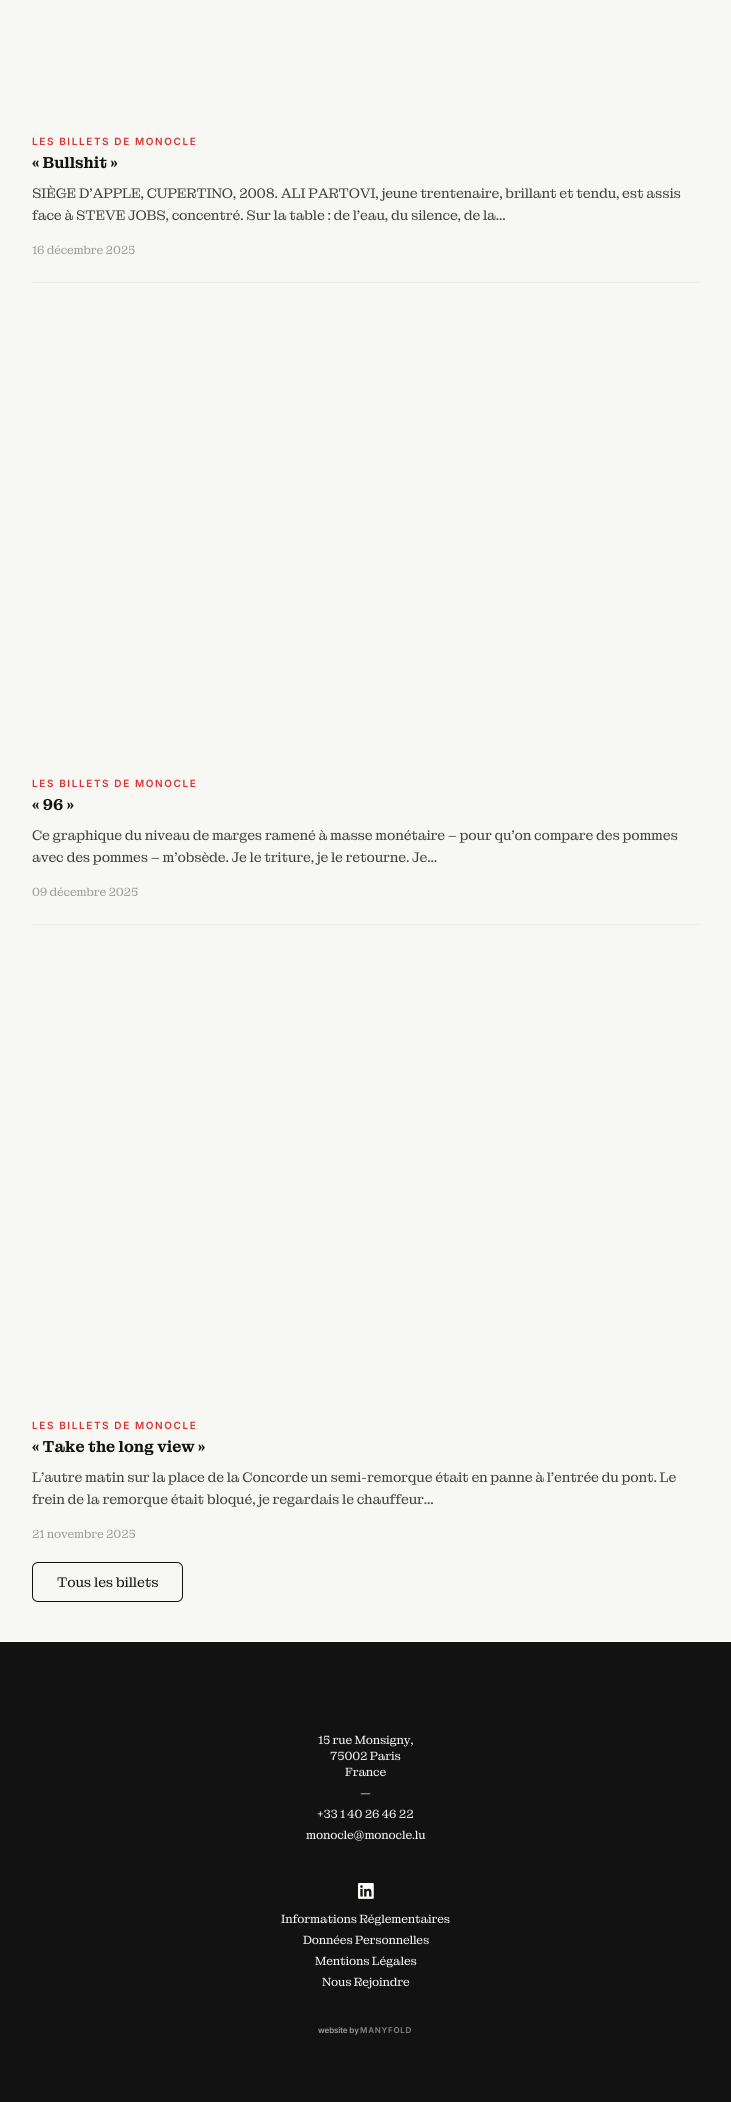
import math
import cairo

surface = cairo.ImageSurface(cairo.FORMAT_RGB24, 731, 2102)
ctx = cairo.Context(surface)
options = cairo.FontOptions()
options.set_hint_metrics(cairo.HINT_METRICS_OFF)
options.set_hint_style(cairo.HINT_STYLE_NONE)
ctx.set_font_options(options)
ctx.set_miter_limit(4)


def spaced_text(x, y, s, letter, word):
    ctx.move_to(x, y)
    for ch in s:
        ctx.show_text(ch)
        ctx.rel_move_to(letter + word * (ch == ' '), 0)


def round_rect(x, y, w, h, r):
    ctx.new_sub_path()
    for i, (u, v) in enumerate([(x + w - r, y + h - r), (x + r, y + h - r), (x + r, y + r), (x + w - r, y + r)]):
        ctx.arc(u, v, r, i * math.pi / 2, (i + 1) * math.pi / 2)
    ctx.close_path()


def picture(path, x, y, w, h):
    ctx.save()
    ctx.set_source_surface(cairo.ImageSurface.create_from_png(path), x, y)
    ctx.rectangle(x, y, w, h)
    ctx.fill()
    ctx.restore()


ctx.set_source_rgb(0.965, 0.965, 0.953)
ctx.paint()
ctx.set_source_rgb(0.922, 0.922, 0.91)
ctx.rectangle(32, 282, 667, 1)
ctx.fill()
ctx.select_font_face("Inter SemiBold")
ctx.set_font_size(10)
ctx.set_source_rgb(0.859, 0.2, 0.204)
spaced_text(32, 145, "LES BILLETS DE MONOCLE", 1.6, 0)
ctx.select_font_face("Montagu Slab SemiBold")
ctx.set_font_size(16)
ctx.set_source_rgb(0.071, 0.071, 0.071)
ctx.move_to(32, 168)
ctx.show_text("« Bullshit »")
ctx.select_font_face("Montagu Slab")
ctx.set_font_size(14)
ctx.set_source_rgb(0.251, 0.251, 0.247)
spaced_text(32, 198, "SIÈGE D’APPLE, CUPERTINO, 2008. ALI PARTOVI, jeune trentenaire, brillant et tendu, est assis", -0.15, 0)
spaced_text(32, 220, "face à STEVE JOBS, concentré. Sur la table : de l’eau, du silence, de la...", -0.15, 0)
ctx.set_font_size(12)
ctx.set_source_rgb(0.608, 0.608, 0.6)
spaced_text(32, 254, "16 décembre 2025", -0.15, 0)
ctx.set_source_rgb(0.922, 0.922, 0.91)
ctx.rectangle(32, 924, 667, 1)
ctx.fill()
ctx.select_font_face("Inter SemiBold")
ctx.set_font_size(10)
ctx.set_source_rgb(0.859, 0.2, 0.204)
spaced_text(32, 787, "LES BILLETS DE MONOCLE", 1.6, 0)
ctx.select_font_face("Montagu Slab SemiBold")
ctx.set_font_size(16)
ctx.set_source_rgb(0.071, 0.071, 0.071)
ctx.move_to(32, 810)
ctx.show_text("« 96 »")
ctx.select_font_face("Montagu Slab")
ctx.set_font_size(14)
ctx.set_source_rgb(0.251, 0.251, 0.247)
spaced_text(32, 840, "Ce graphique du niveau de marges ramené à masse monétaire – pour qu’on compare des pommes", -0.15, 0)
spaced_text(32, 862, "avec des pommes – m’obsède. Je le triture, je le retourne. Je...", -0.15, 0)
ctx.set_font_size(12)
ctx.set_source_rgb(0.608, 0.608, 0.6)
spaced_text(32, 896, "09 décembre 2025", -0.15, 0)
ctx.select_font_face("Inter SemiBold")
ctx.set_font_size(10)
ctx.set_source_rgb(0.859, 0.2, 0.204)
spaced_text(32, 1429, "LES BILLETS DE MONOCLE", 1.6, 0)
ctx.select_font_face("Montagu Slab SemiBold")
ctx.set_font_size(16)
ctx.set_source_rgb(0.071, 0.071, 0.071)
ctx.move_to(32, 1452)
ctx.show_text("« Take the long view »")
ctx.select_font_face("Montagu Slab")
ctx.set_font_size(14)
ctx.set_source_rgb(0.251, 0.251, 0.247)
spaced_text(32, 1482, "L’autre matin sur la place de la Concorde un semi-remorque était en panne à l’entrée du pont. Le", -0.15, 0)
spaced_text(32, 1504, "frein de la remorque était bloqué, je regardais le chauffeur...", -0.15, 0)
ctx.set_font_size(12)
ctx.set_source_rgb(0.608, 0.608, 0.6)
spaced_text(32, 1538, "21 novembre 2025", -0.15, 0)
round_rect(32.5, 1562.5, 150, 39, 5.5)
ctx.set_source_rgb(0.071, 0.071, 0.071)
ctx.set_line_width(1)
ctx.stroke()
ctx.set_font_size(14)
spaced_text(57, 1587, "Tous les billets", -0.1, 0)
ctx.rectangle(0, 1642, 731, 460)
ctx.fill()
ctx.set_font_size(12)
ctx.set_source_rgb(0.992, 0.992, 0.98)
spaced_text(318, 1744, "15 rue Monsigny,", -0.15, 0)
spaced_text(330, 1760, "75002 Paris", -0.15, 0)
spaced_text(345, 1776, "France", -0.15, 0)
spaced_text(360, 1797, "—", -0.15, 0)
spaced_text(317, 1818, "+33 1 40 26 46 22", -0.15, 0)
spaced_text(306, 1839, "monocle@monocle.lu", -0.15, 0)
picture("img1.png", 358, 1883, 16, 16)
spaced_text(281, 1923, "Informations Réglementaires", -0.15, 0)
spaced_text(303, 1944, "Données Personnelles", -0.15, 0)
spaced_text(315, 1965, "Mentions Légales", -0.15, 0)
spaced_text(322, 1986, "Nous Rejoindre", -0.15, 0)
ctx.select_font_face("Inter SemiBold")
ctx.set_font_size(8)
ctx.set_source_rgb(0.608, 0.608, 0.6)
spaced_text(318, 2033, "website by", -0.15, 0)
ctx.set_source_rgb(0.514, 0.514, 0.506)
spaced_text(360, 2033, "MANYFOLD", 0.75, 0)
surface.write_to_png("page.png")
